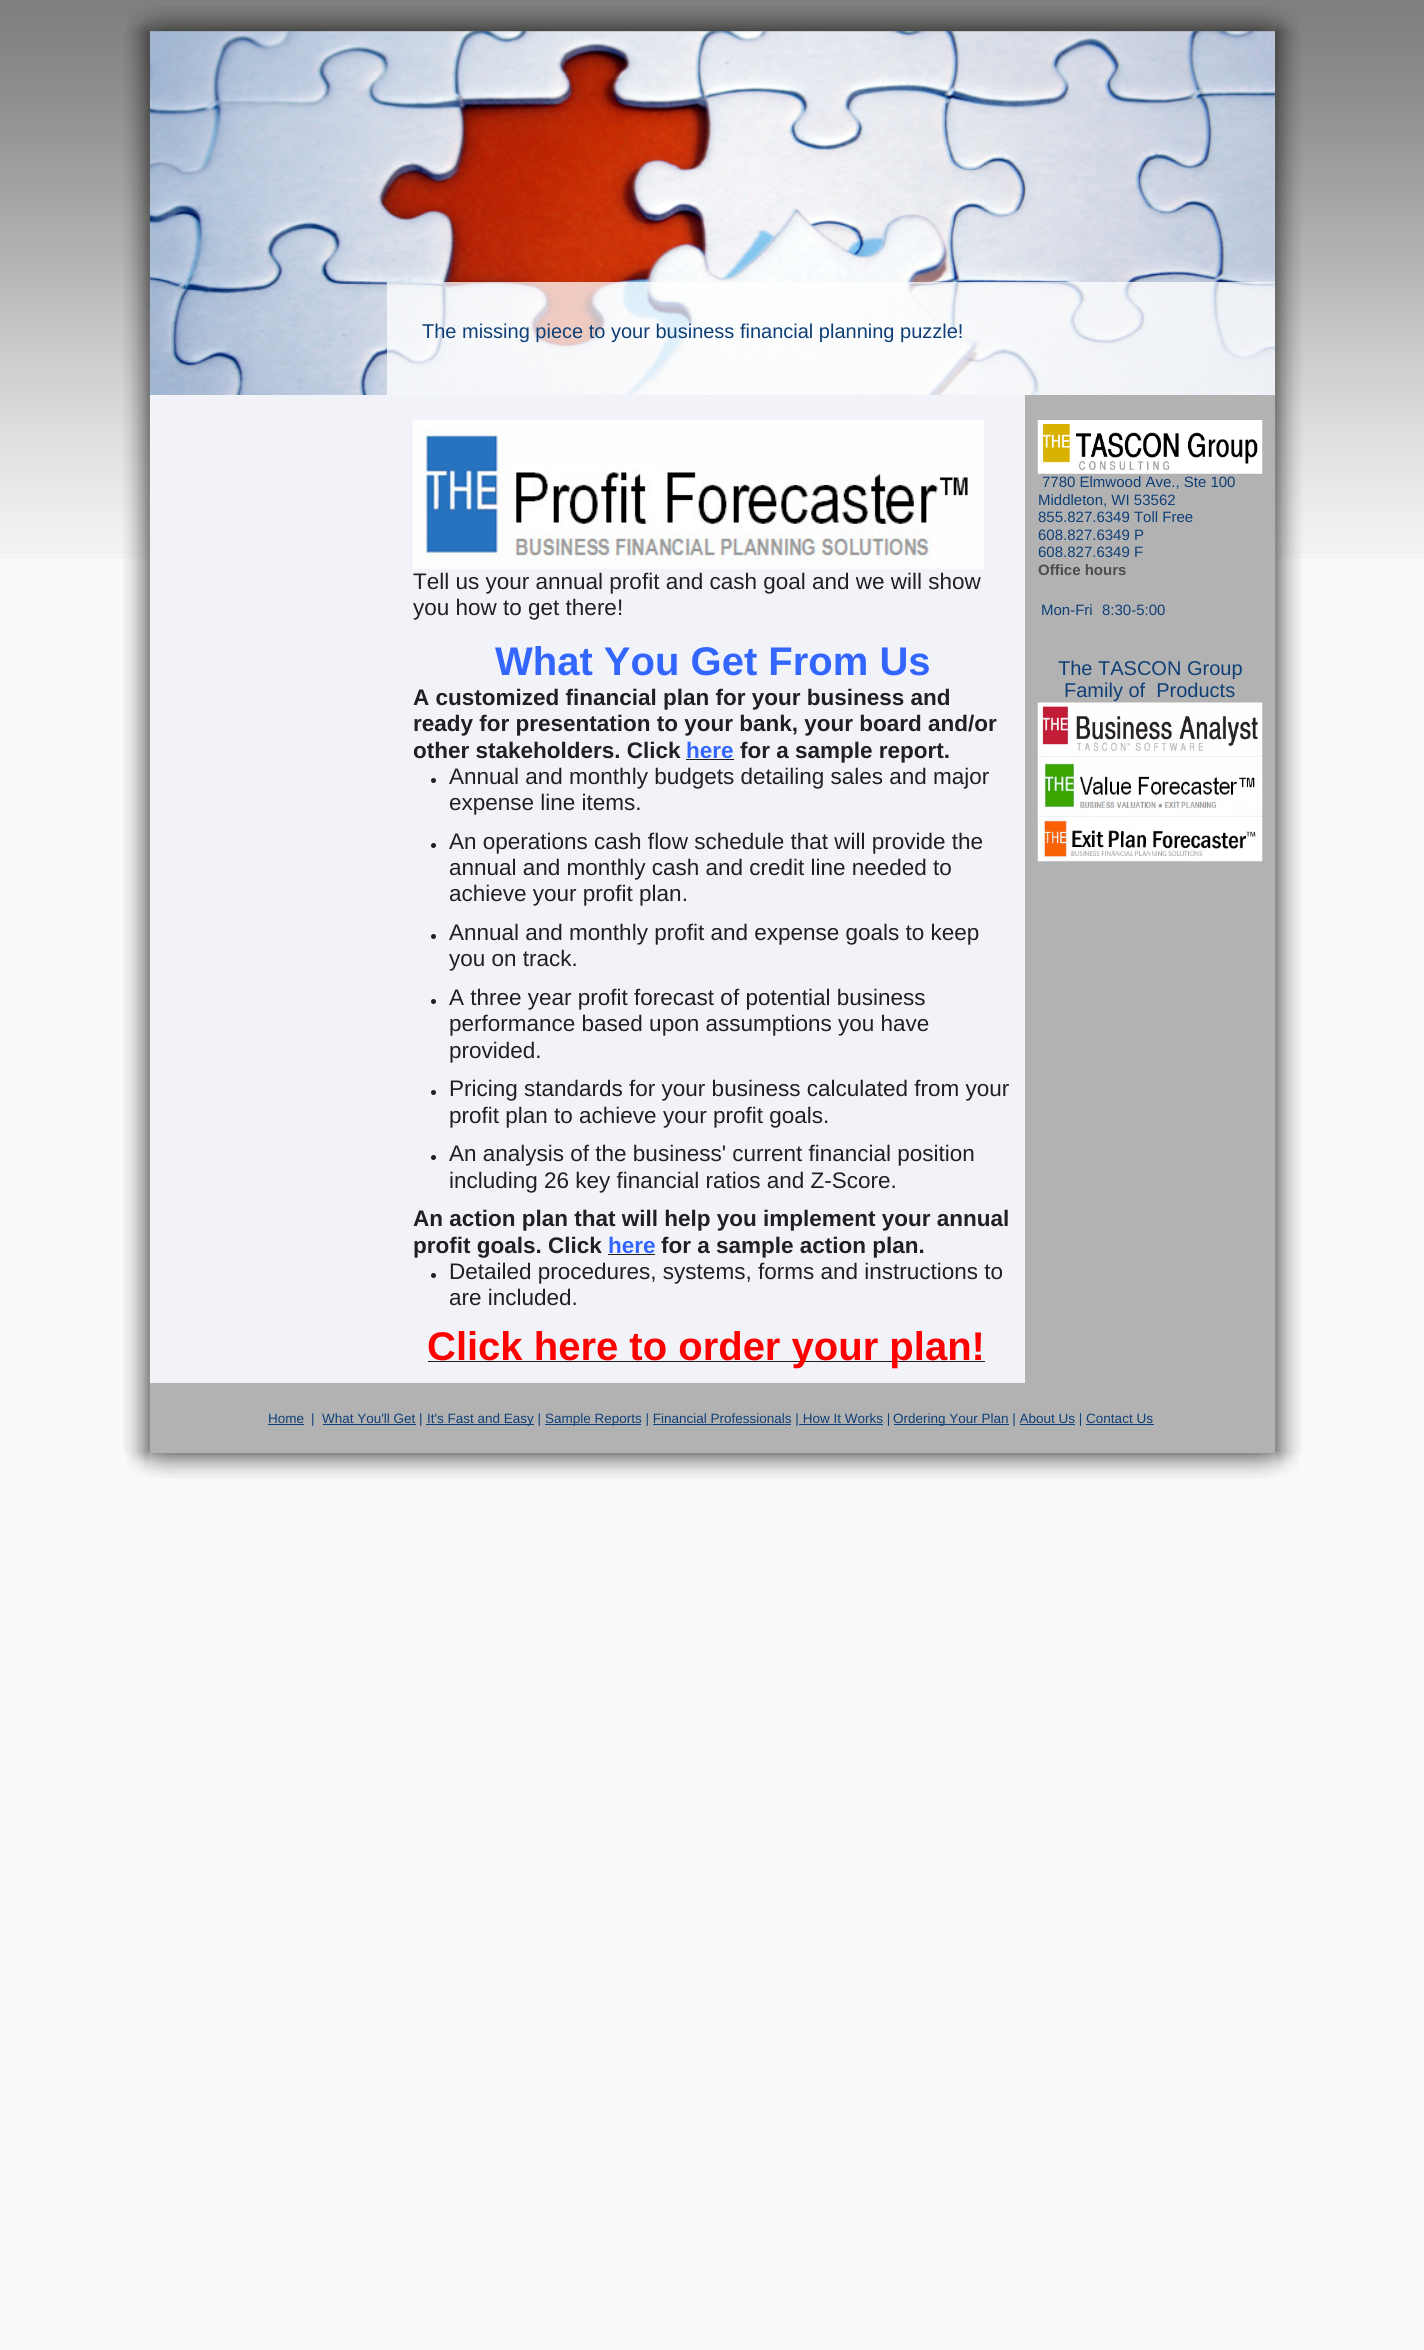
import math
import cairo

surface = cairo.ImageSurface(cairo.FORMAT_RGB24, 1424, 2350)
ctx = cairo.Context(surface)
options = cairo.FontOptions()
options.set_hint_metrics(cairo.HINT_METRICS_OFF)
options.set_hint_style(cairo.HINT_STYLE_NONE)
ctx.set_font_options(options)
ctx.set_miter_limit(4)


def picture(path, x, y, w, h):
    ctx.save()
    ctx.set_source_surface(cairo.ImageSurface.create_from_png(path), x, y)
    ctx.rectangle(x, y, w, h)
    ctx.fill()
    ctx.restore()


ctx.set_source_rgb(0.98, 0.98, 0.98)
ctx.paint()
picture("img1.png", 0, 0, 1424, 559)
picture("img3.png", 123, 31, 1179, 1422)
picture("img2.png", 126, 6, 1173, 26)
picture("img4.png", 150, 31, 1125, 364)
ctx.set_source_rgba(1, 1, 1, 0.75)
ctx.rectangle(387, 282, 888, 113)
ctx.fill()
ctx.select_font_face("Liberation Sans")
ctx.set_font_size(20)
ctx.set_source_rgb(0.055, 0.247, 0.467)
ctx.move_to(422, 338)
ctx.show_text("The missing piece to your business financial planning puzzle!")
ctx.set_source_rgb(0.945, 0.953, 0.973)
ctx.rectangle(150, 395, 875, 988)
ctx.fill()
picture("img5.png", 412, 420, 572, 149)
ctx.set_font_size(22.5)
ctx.set_source_rgb(0.125, 0.125, 0.133)
ctx.move_to(413, 589)
ctx.show_text("Tell us your annual profit and cash goal and we will show")
ctx.move_to(413, 615)
ctx.show_text("you how to get there!")
ctx.select_font_face("Liberation Sans", cairo.FONT_SLANT_NORMAL, cairo.FONT_WEIGHT_BOLD)
ctx.set_font_size(40)
ctx.set_source_rgb(0.2, 0.4, 1)
ctx.move_to(495, 675)
ctx.show_text("What You Get From Us")
ctx.set_font_size(22.5)
ctx.set_source_rgb(0.125, 0.125, 0.133)
ctx.move_to(413, 705)
ctx.show_text("A customized financial plan for your business and")
ctx.move_to(413, 731)
ctx.show_text("ready for presentation to your bank, your board and/or")
ctx.move_to(413, 758)
ctx.show_text("other stakeholders. Click")
ctx.set_source_rgb(0.2, 0.4, 1)
ctx.move_to(686, 758)
ctx.show_text("here")
ctx.set_source_rgb(0.125, 0.125, 0.133)
ctx.rectangle(686, 759, 48, 1)
ctx.fill()
ctx.move_to(740, 758)
ctx.show_text("for a sample report.")
ctx.new_path()
ctx.arc(433.5, 780.5, 2.5, 0, 2 * math.pi)
ctx.fill()
ctx.select_font_face("Liberation Sans")
ctx.move_to(449, 784)
ctx.show_text("Annual and monthly budgets detailing sales and major")
ctx.move_to(449, 810)
ctx.show_text("expense line items.")
ctx.new_path()
ctx.arc(433.5, 845.5, 2.5, 0, 2 * math.pi)
ctx.fill()
ctx.move_to(449, 849)
ctx.show_text("An operations cash flow schedule that will provide the")
ctx.move_to(449, 875)
ctx.show_text("annual and monthly cash and credit line needed to")
ctx.move_to(449, 901)
ctx.show_text("achieve your profit plan.")
ctx.new_path()
ctx.arc(433.5, 936.5, 2.5, 0, 2 * math.pi)
ctx.fill()
ctx.move_to(449, 940)
ctx.show_text("Annual and monthly profit and expense goals to keep")
ctx.move_to(449, 966)
ctx.show_text("you on track.")
ctx.new_path()
ctx.arc(433.5, 1001.5, 2.5, 0, 2 * math.pi)
ctx.fill()
ctx.move_to(449, 1005)
ctx.show_text("A three year profit forecast of potential business")
ctx.move_to(449, 1031)
ctx.show_text("performance based upon assumptions you have")
ctx.move_to(449, 1058)
ctx.show_text("provided.")
ctx.new_path()
ctx.arc(433.5, 1092.5, 2.5, 0, 2 * math.pi)
ctx.fill()
ctx.move_to(449, 1096)
ctx.show_text("Pricing standards for your business calculated from your")
ctx.move_to(449, 1123)
ctx.show_text("profit plan to achieve your profit goals.")
ctx.new_path()
ctx.arc(433.5, 1157.5, 2.5, 0, 2 * math.pi)
ctx.fill()
ctx.move_to(449, 1161)
ctx.show_text("An analysis of the business' current financial position")
ctx.move_to(449, 1188)
ctx.show_text("including 26 key financial ratios and Z-Score.")
ctx.select_font_face("Liberation Sans", cairo.FONT_SLANT_NORMAL, cairo.FONT_WEIGHT_BOLD)
ctx.move_to(413, 1226)
ctx.show_text("An action plan that will help you implement your annual")
ctx.move_to(413, 1253)
ctx.show_text("profit goals. Click")
ctx.set_source_rgb(0.2, 0.4, 1)
ctx.move_to(608, 1253)
ctx.show_text("here")
ctx.set_source_rgb(0.125, 0.125, 0.133)
ctx.rectangle(608, 1254, 47, 1)
ctx.fill()
ctx.move_to(661, 1253)
ctx.show_text("for a sample action plan.")
ctx.new_path()
ctx.arc(433.5, 1275.5, 2.5, 0, 2 * math.pi)
ctx.fill()
ctx.select_font_face("Liberation Sans")
ctx.move_to(449, 1279)
ctx.show_text("Detailed procedures, systems, forms and instructions to")
ctx.move_to(449, 1305)
ctx.show_text("are included.")
ctx.rectangle(428, 1361, 557, 1)
ctx.fill()
ctx.select_font_face("Liberation Sans", cairo.FONT_SLANT_NORMAL, cairo.FONT_WEIGHT_BOLD)
ctx.set_font_size(40)
ctx.set_source_rgb(1, 0, 0)
ctx.move_to(427, 1360)
ctx.show_text("Click here to order your plan!")
ctx.set_source_rgb(0.702, 0.698, 0.698)
ctx.rectangle(1025, 395, 250, 988)
ctx.fill()
picture("img6.png", 1037, 420, 226, 54)
ctx.select_font_face("Liberation Sans")
ctx.set_font_size(15)
ctx.set_source_rgb(0.055, 0.247, 0.467)
ctx.move_to(1042, 487)
ctx.show_text("7780 Elmwood Ave., Ste 100")
ctx.move_to(1038, 505)
ctx.show_text("Middleton, WI 53562")
ctx.move_to(1038, 522)
ctx.show_text("855.827.6349 Toll Free")
ctx.move_to(1038, 540)
ctx.show_text("608.827.6349 P")
ctx.move_to(1038, 557)
ctx.show_text("608.827.6349 F")
ctx.select_font_face("Liberation Sans", cairo.FONT_SLANT_NORMAL, cairo.FONT_WEIGHT_BOLD)
ctx.set_source_rgb(0.302, 0.302, 0.302)
ctx.move_to(1038, 575)
ctx.show_text("Office hours")
ctx.select_font_face("Liberation Sans")
ctx.set_source_rgb(0.055, 0.247, 0.467)
ctx.move_to(1041, 615)
ctx.show_text("Mon-Fri")
ctx.move_to(1102, 615)
ctx.show_text("8:30-5:00")
ctx.set_font_size(20)
ctx.move_to(1058, 675)
ctx.show_text("The TASCON Group")
ctx.move_to(1064, 697)
ctx.show_text("Family of  Products")
picture("img7.png", 1037, 702, 226, 55)
picture("img8.png", 1037, 756, 226, 61)
picture("img9.png", 1037, 816, 226, 46)
picture("img10.png", 125, 1452, 1175, 27)
ctx.set_source_rgb(0.702, 0.698, 0.698)
ctx.rectangle(150, 1383, 1125, 70)
ctx.fill()
ctx.set_font_size(13.5)
ctx.set_source_rgb(0.055, 0.247, 0.467)
ctx.move_to(268, 1423)
ctx.show_text("Home")
ctx.rectangle(268, 1424, 36, 1)
ctx.fill()
ctx.move_to(311, 1423)
ctx.show_text("|")
ctx.rectangle(323, 1424, 93, 1)
ctx.fill()
ctx.move_to(322, 1423)
ctx.show_text("What You'll Get |")
ctx.rectangle(426, 1424, 108, 1)
ctx.fill()
ctx.move_to(427, 1423)
ctx.show_text("It's Fast and Easy |")
ctx.rectangle(545, 1424, 96, 1)
ctx.fill()
ctx.move_to(545, 1423)
ctx.show_text("Sample Reports | Financial Professionals | How It Works |")
ctx.rectangle(894, 1424, 115, 1)
ctx.fill()
ctx.move_to(893, 1423)
ctx.show_text("Ordering Your Plan | About Us | Contact Us")
ctx.rectangle(653, 1424, 138, 1)
ctx.fill()
ctx.rectangle(799, 1424, 84, 1)
ctx.fill()
ctx.rectangle(1020, 1424, 55, 1)
ctx.fill()
ctx.rectangle(1086, 1424, 68, 1)
ctx.fill()
surface.write_to_png("page.png")
